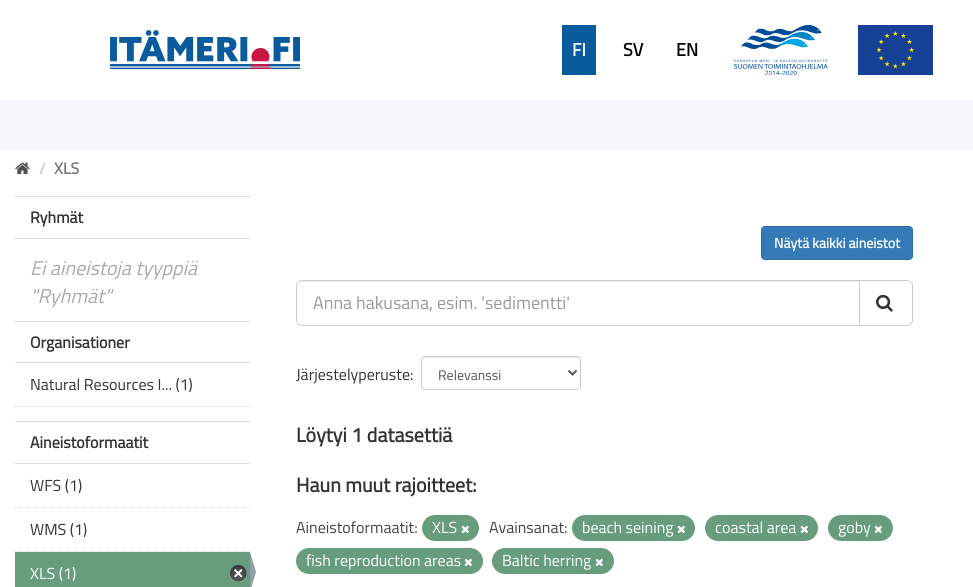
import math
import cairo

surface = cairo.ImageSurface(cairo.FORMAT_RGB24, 973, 587)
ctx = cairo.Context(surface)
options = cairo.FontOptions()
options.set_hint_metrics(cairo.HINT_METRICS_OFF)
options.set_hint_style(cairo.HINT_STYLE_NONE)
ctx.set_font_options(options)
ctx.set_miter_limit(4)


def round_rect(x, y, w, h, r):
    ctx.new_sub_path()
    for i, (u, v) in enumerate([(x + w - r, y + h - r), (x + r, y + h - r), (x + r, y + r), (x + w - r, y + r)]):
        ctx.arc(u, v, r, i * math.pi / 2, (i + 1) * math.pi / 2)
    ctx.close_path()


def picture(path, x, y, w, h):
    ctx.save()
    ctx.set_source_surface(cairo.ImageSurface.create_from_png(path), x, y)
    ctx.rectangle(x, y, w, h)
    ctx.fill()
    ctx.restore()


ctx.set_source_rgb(1, 1, 1)
ctx.paint()
picture("img1.png", 110, 30, 190, 39)
ctx.set_source_rgb(0.035, 0.357, 0.616)
ctx.rectangle(562, 25, 34, 50)
ctx.fill()
ctx.select_font_face("Titillium Web", cairo.FONT_SLANT_NORMAL, cairo.FONT_WEIGHT_BOLD)
ctx.set_font_size(18)
ctx.set_source_rgb(1, 1, 1)
ctx.move_to(572, 56)
ctx.show_text("FI")
ctx.set_source_rgb(0, 0, 0)
ctx.move_to(623, 56)
ctx.show_text("SV")
ctx.move_to(676, 56)
ctx.show_text("EN")
picture("img2.png", 734, 25, 94, 50)
picture("img3.png", 858, 25, 75, 50)
ctx.set_source_rgb(0.961, 0.965, 0.98)
ctx.rectangle(0, 100, 973, 50)
ctx.fill()
picture("img4.png", 15, 162, 15, 12)
ctx.set_font_size(16)
ctx.set_source_rgb(0.8, 0.8, 0.8)
ctx.move_to(39, 174)
ctx.show_text("/")
ctx.set_source_rgb(0.467, 0.467, 0.467)
ctx.move_to(54, 174)
ctx.show_text("XLS")
ctx.set_source_rgb(0.867, 0.867, 0.867)
ctx.rectangle(15, 196, 235, 1)
ctx.fill()
ctx.rectangle(15, 238, 235, 1)
ctx.fill()
ctx.set_source_rgb(0.2, 0.2, 0.2)
ctx.move_to(30, 223)
ctx.show_text("Ryhmät")
ctx.select_font_face("Titillium Web", cairo.FONT_SLANT_ITALIC)
ctx.set_font_size(20)
ctx.set_source_rgb(0.667, 0.667, 0.667)
ctx.move_to(30, 275)
ctx.show_text("Ei aineistoja tyyppiä")
ctx.move_to(30, 303)
ctx.show_text("\"Ryhmät\"")
ctx.set_source_rgb(0.867, 0.867, 0.867)
ctx.rectangle(15, 321, 235, 1)
ctx.fill()
ctx.rectangle(15, 362, 235, 1)
ctx.fill()
ctx.select_font_face("Titillium Web", cairo.FONT_SLANT_NORMAL, cairo.FONT_WEIGHT_BOLD)
ctx.set_font_size(16)
ctx.set_source_rgb(0.2, 0.2, 0.2)
ctx.move_to(30, 348)
ctx.show_text("Organisationer")
ctx.select_font_face("Titillium Web")
ctx.move_to(30, 390)
ctx.show_text("Natural Resources I... (1)")
ctx.new_path()
ctx.move_to(15, 406.5)
ctx.line_to(250, 406.5)
ctx.set_source_rgb(0.867, 0.867, 0.867)
ctx.set_line_width(1)
ctx.set_dash([1, 1])
ctx.stroke()
ctx.rectangle(15, 421, 235, 1)
ctx.fill()
ctx.rectangle(15, 463, 235, 1)
ctx.fill()
ctx.select_font_face("Titillium Web", cairo.FONT_SLANT_NORMAL, cairo.FONT_WEIGHT_BOLD)
ctx.set_source_rgb(0.2, 0.2, 0.2)
ctx.move_to(30, 448)
ctx.show_text("Aineistoformaatit")
ctx.new_path()
ctx.move_to(15, 507.5)
ctx.line_to(250, 507.5)
ctx.set_source_rgb(0.867, 0.867, 0.867)
ctx.stroke()
ctx.select_font_face("Titillium Web")
ctx.set_source_rgb(0.2, 0.2, 0.2)
ctx.move_to(30, 491)
ctx.show_text("WFS (1)")
ctx.new_path()
ctx.move_to(15, 551.5)
ctx.line_to(250, 551.5)
ctx.set_source_rgb(0.867, 0.867, 0.867)
ctx.stroke()
ctx.set_source_rgb(0.2, 0.2, 0.2)
ctx.move_to(30, 535)
ctx.show_text("WMS (1)")
ctx.set_source_rgb(0.404, 0.616, 0.49)
ctx.rectangle(15, 552, 235, 35)
ctx.fill()
ctx.set_source_rgb(1, 1, 1)
ctx.move_to(30, 579)
ctx.show_text("XLS (1)")
picture("img5.png", 230, 565, 17, 17)
ctx.set_source_rgb(0.549, 0.627, 0.651)
ctx.new_path()
ctx.move_to(250, 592)
ctx.line_to(250, 552)
ctx.line_to(256, 572)
ctx.close_path()
ctx.fill()
ctx.set_source_rgb(0.2, 0.478, 0.718)
round_rect(761.5, 226.5, 151, 33, 3.5)
ctx.fill_preserve()
ctx.set_source_rgb(0.18, 0.427, 0.643)
ctx.set_dash([])
ctx.stroke()
ctx.select_font_face("Titillium Web", cairo.FONT_SLANT_NORMAL, cairo.FONT_WEIGHT_BOLD)
ctx.set_font_size(14)
ctx.set_source_rgb(1, 1, 1)
ctx.move_to(774, 248)
ctx.show_text("Näytä kaikki aineistot")
ctx.set_source_rgb(0.925, 0.925, 0.925)
ctx.new_path()
ctx.move_to(302, 282)
ctx.line_to(859, 282)
ctx.line_to(859, 281)
ctx.line_to(302, 281)
ctx.curve_to(299, 281, 297, 284, 297, 287)
ctx.curve_to(297, 284, 299, 282, 302, 282)
ctx.close_path()
ctx.fill()
ctx.new_path()
ctx.move_to(302, 280.5)
ctx.line_to(859.5, 280.5)
ctx.line_to(859.5, 325.5)
ctx.line_to(302, 325.5)
ctx.curve_to(299, 325.5, 296.5, 323, 296.5, 320)
ctx.line_to(296.5, 286)
ctx.curve_to(296.5, 283, 299, 280.5, 302, 280.5)
ctx.close_path()
ctx.set_source_rgb(0.8, 0.8, 0.8)
ctx.stroke()
ctx.select_font_face("Titillium Web")
ctx.set_font_size(18)
ctx.set_source_rgb(0.6, 0.6, 0.6)
ctx.move_to(313, 309)
ctx.show_text("Anna hakusana, esim. 'sedimentti'")
ctx.set_source_rgb(1, 1, 1)
ctx.new_path()
ctx.move_to(859.5, 280.5)
ctx.line_to(907, 280.5)
ctx.curve_to(910, 280.5, 912.5, 283, 912.5, 286)
ctx.line_to(912.5, 320)
ctx.curve_to(912.5, 323, 910, 325.5, 907, 325.5)
ctx.line_to(859.5, 325.5)
ctx.close_path()
ctx.fill_preserve()
ctx.set_source_rgb(0.8, 0.8, 0.8)
ctx.stroke()
picture("img6.png", 876, 294, 17, 18)
ctx.set_font_size(16)
ctx.set_source_rgb(0.2, 0.2, 0.2)
ctx.move_to(296, 380)
ctx.show_text("Järjestelyperuste:")
ctx.set_source_rgb(0.925, 0.925, 0.925)
ctx.new_path()
ctx.move_to(425, 358)
ctx.line_to(577, 358)
ctx.curve_to(579, 358, 580, 359, 580, 361)
ctx.curve_to(580, 359, 579, 357, 577, 357)
ctx.line_to(424, 357)
ctx.curve_to(422, 357, 422, 359, 422, 361)
ctx.curve_to(422, 359, 423, 358, 425, 358)
ctx.close_path()
ctx.fill()
round_rect(421.5, 356.5, 159, 33, 3.5)
ctx.set_source_rgb(0.8, 0.8, 0.8)
ctx.stroke()
ctx.new_path()
ctx.move_to(568.5, 370.5)
ctx.line_to(572.5, 374.5)
ctx.line_to(576.5, 370.5)
ctx.set_source_rgb(0.333, 0.333, 0.333)
ctx.set_line_width(2)
ctx.stroke()
ctx.set_font_size(14)
ctx.move_to(438, 380)
ctx.show_text("Relevanssi")
ctx.select_font_face("Titillium Web", cairo.FONT_SLANT_NORMAL, cairo.FONT_WEIGHT_BOLD)
ctx.set_font_size(20)
ctx.set_source_rgb(0.2, 0.2, 0.2)
ctx.move_to(296, 442)
ctx.show_text("Löytyi 1 datasettiä")
ctx.move_to(296, 492)
ctx.show_text("Haun muut rajoitteet:")
ctx.select_font_face("Titillium Web")
ctx.set_font_size(16)
ctx.set_source_rgb(0.267, 0.267, 0.267)
ctx.move_to(296, 533)
ctx.show_text("Aineistoformaatit:")
ctx.set_source_rgb(0.404, 0.616, 0.49)
round_rect(422, 515, 57, 26, 13)
ctx.fill()
ctx.set_source_rgb(1, 1, 1)
ctx.move_to(432, 533)
ctx.show_text("XLS")
picture("img7.png", 461, 525, 8, 9)
ctx.set_source_rgb(0.267, 0.267, 0.267)
ctx.move_to(489, 533)
ctx.show_text("Avainsanat:")
ctx.set_source_rgb(0.404, 0.616, 0.49)
round_rect(572, 515, 123, 26, 13)
ctx.fill()
ctx.set_source_rgb(1, 1, 1)
ctx.move_to(582, 533)
ctx.show_text("beach seining")
picture("img7.png", 677, 525, 8, 9)
ctx.set_source_rgb(0.404, 0.616, 0.49)
round_rect(705, 515, 113, 26, 13)
ctx.fill()
ctx.set_source_rgb(1, 1, 1)
ctx.move_to(715, 533)
ctx.show_text("coastal area")
picture("img7.png", 800, 525, 8, 9)
ctx.set_source_rgb(0.404, 0.616, 0.49)
round_rect(828, 515, 65, 26, 13)
ctx.fill()
ctx.set_source_rgb(1, 1, 1)
ctx.move_to(838, 533)
ctx.show_text("goby")
picture("img7.png", 874, 525, 8, 9)
ctx.set_source_rgb(0.404, 0.616, 0.49)
round_rect(296, 548, 187, 26, 13)
ctx.fill()
ctx.set_source_rgb(1, 1, 1)
ctx.move_to(306, 566)
ctx.show_text("fish reproduction areas")
picture("img7.png", 464, 558, 8, 9)
ctx.set_source_rgb(0.404, 0.616, 0.49)
round_rect(492, 548, 122, 26, 13)
ctx.fill()
ctx.set_source_rgb(1, 1, 1)
ctx.move_to(502, 566)
ctx.show_text("Baltic herring")
picture("img7.png", 595, 558, 8, 9)
surface.write_to_png("page.png")
